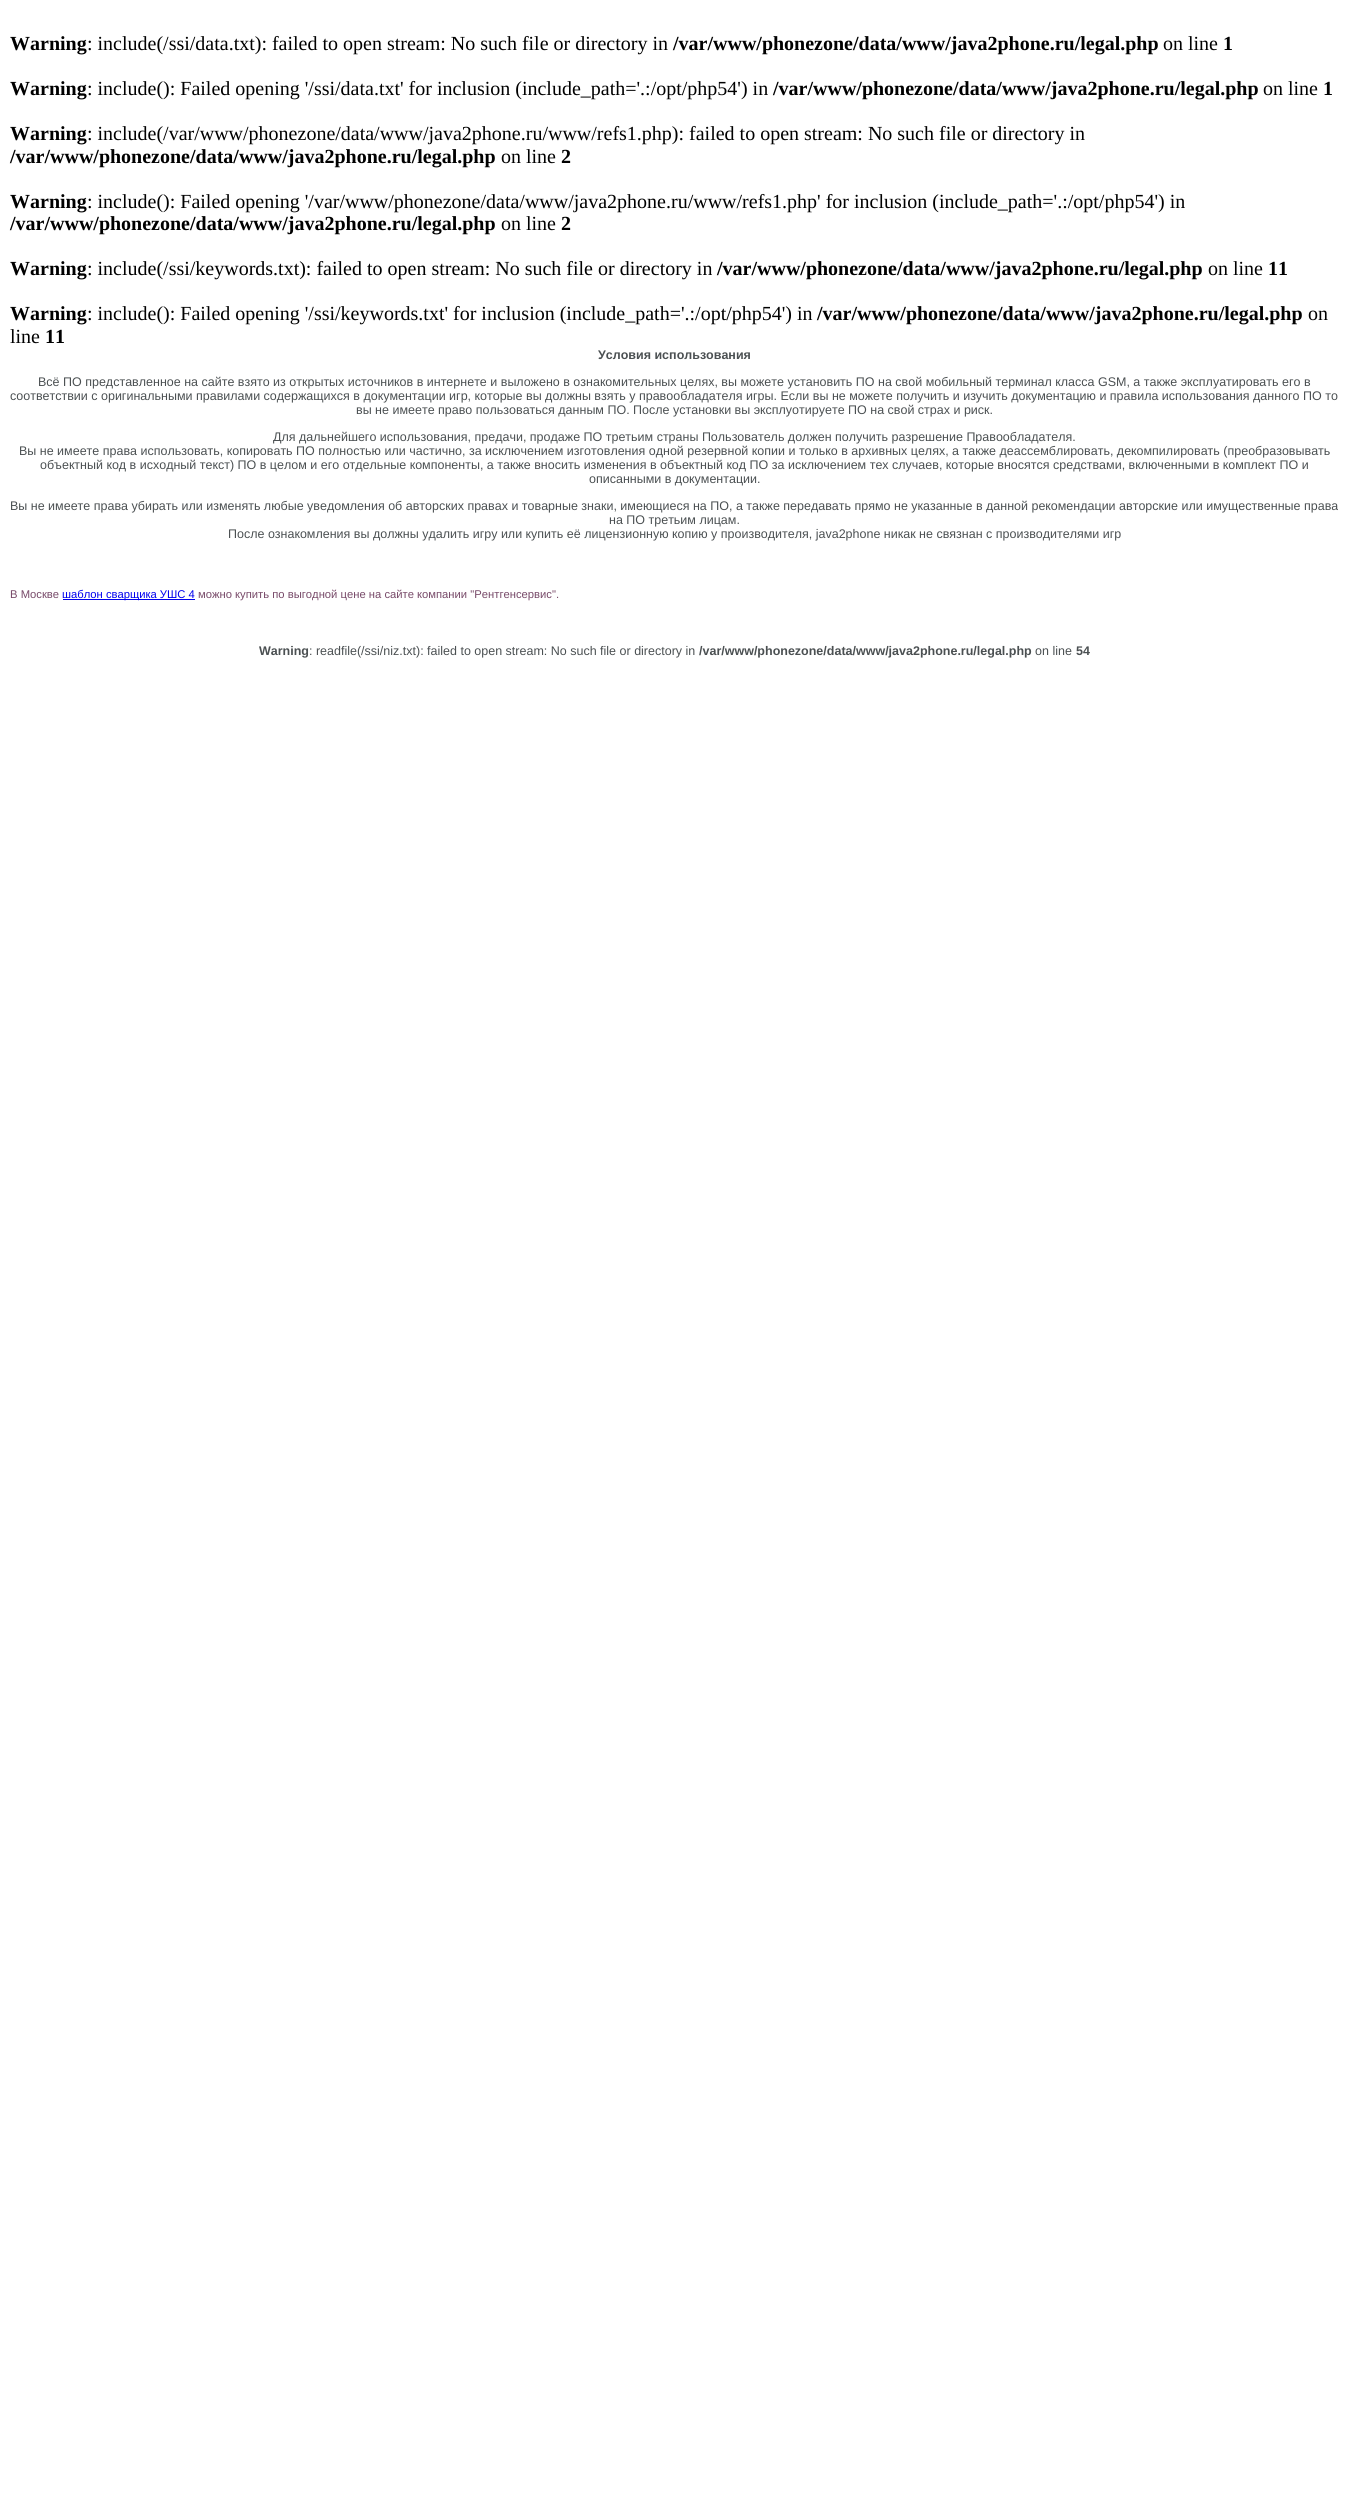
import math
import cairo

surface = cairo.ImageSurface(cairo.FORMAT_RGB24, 1348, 2498)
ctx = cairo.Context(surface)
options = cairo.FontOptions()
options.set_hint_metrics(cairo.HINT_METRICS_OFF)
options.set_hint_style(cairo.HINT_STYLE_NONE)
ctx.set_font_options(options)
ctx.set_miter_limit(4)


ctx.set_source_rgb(1, 1, 1)
ctx.paint()
ctx.select_font_face("Liberation Serif", cairo.FONT_SLANT_NORMAL, cairo.FONT_WEIGHT_BOLD)
ctx.set_font_size(20)
ctx.set_source_rgb(0, 0, 0)
ctx.move_to(10, 50)
ctx.show_text("Warning")
ctx.select_font_face("Liberation Serif")
ctx.move_to(87, 50)
ctx.show_text(": include(/ssi/data.txt): failed to open stream: No such file or directory in")
ctx.select_font_face("Liberation Serif", cairo.FONT_SLANT_NORMAL, cairo.FONT_WEIGHT_BOLD)
ctx.move_to(673, 50)
ctx.show_text("/var/www/phonezone/data/www/java2phone.ru/legal.php")
ctx.select_font_face("Liberation Serif")
ctx.move_to(1163, 50)
ctx.show_text("on line")
ctx.select_font_face("Liberation Serif", cairo.FONT_SLANT_NORMAL, cairo.FONT_WEIGHT_BOLD)
ctx.move_to(1223, 50)
ctx.show_text("1")
ctx.move_to(10, 95)
ctx.show_text("Warning")
ctx.select_font_face("Liberation Serif")
ctx.move_to(87, 95)
ctx.show_text(": include(): Failed opening '/ssi/data.txt' for inclusion (include_path='.:/opt/php54') in")
ctx.select_font_face("Liberation Serif", cairo.FONT_SLANT_NORMAL, cairo.FONT_WEIGHT_BOLD)
ctx.move_to(773, 95)
ctx.show_text("/var/www/phonezone/data/www/java2phone.ru/legal.php")
ctx.select_font_face("Liberation Serif")
ctx.move_to(1263, 95)
ctx.show_text("on line")
ctx.select_font_face("Liberation Serif", cairo.FONT_SLANT_NORMAL, cairo.FONT_WEIGHT_BOLD)
ctx.move_to(1323, 95)
ctx.show_text("1")
ctx.move_to(10, 140)
ctx.show_text("Warning")
ctx.select_font_face("Liberation Serif")
ctx.move_to(87, 140)
ctx.show_text(": include(/var/www/phonezone/data/www/java2phone.ru/www/refs1.php): failed to open stream: No such file or directory in")
ctx.select_font_face("Liberation Serif", cairo.FONT_SLANT_NORMAL, cairo.FONT_WEIGHT_BOLD)
ctx.move_to(10, 163)
ctx.show_text("/var/www/phonezone/data/www/java2phone.ru/legal.php")
ctx.select_font_face("Liberation Serif")
ctx.move_to(501, 163)
ctx.show_text("on line")
ctx.select_font_face("Liberation Serif", cairo.FONT_SLANT_NORMAL, cairo.FONT_WEIGHT_BOLD)
ctx.move_to(561, 163)
ctx.show_text("2")
ctx.move_to(10, 208)
ctx.show_text("Warning")
ctx.select_font_face("Liberation Serif")
ctx.move_to(87, 208)
ctx.show_text(": include(): Failed opening '/var/www/phonezone/data/www/java2phone.ru/www/refs1.php' for inclusion (include_path='.:/opt/php54') in")
ctx.select_font_face("Liberation Serif", cairo.FONT_SLANT_NORMAL, cairo.FONT_WEIGHT_BOLD)
ctx.move_to(10, 230)
ctx.show_text("/var/www/phonezone/data/www/java2phone.ru/legal.php")
ctx.select_font_face("Liberation Serif")
ctx.move_to(501, 230)
ctx.show_text("on line")
ctx.select_font_face("Liberation Serif", cairo.FONT_SLANT_NORMAL, cairo.FONT_WEIGHT_BOLD)
ctx.move_to(561, 230)
ctx.show_text("2")
ctx.move_to(10, 275)
ctx.show_text("Warning")
ctx.select_font_face("Liberation Serif")
ctx.move_to(87, 275)
ctx.show_text(": include(/ssi/keywords.txt): failed to open stream: No such file or directory in")
ctx.select_font_face("Liberation Serif", cairo.FONT_SLANT_NORMAL, cairo.FONT_WEIGHT_BOLD)
ctx.move_to(717, 275)
ctx.show_text("/var/www/phonezone/data/www/java2phone.ru/legal.php")
ctx.select_font_face("Liberation Serif")
ctx.move_to(1208, 275)
ctx.show_text("on line")
ctx.select_font_face("Liberation Serif", cairo.FONT_SLANT_NORMAL, cairo.FONT_WEIGHT_BOLD)
ctx.move_to(1268, 275)
ctx.show_text("11")
ctx.move_to(10, 320)
ctx.show_text("Warning")
ctx.select_font_face("Liberation Serif")
ctx.move_to(87, 320)
ctx.show_text(": include(): Failed opening '/ssi/keywords.txt' for inclusion (include_path='.:/opt/php54') in")
ctx.select_font_face("Liberation Serif", cairo.FONT_SLANT_NORMAL, cairo.FONT_WEIGHT_BOLD)
ctx.move_to(817, 320)
ctx.show_text("/var/www/phonezone/data/www/java2phone.ru/legal.php")
ctx.select_font_face("Liberation Serif")
ctx.move_to(1308, 320)
ctx.show_text("on")
ctx.move_to(10, 343)
ctx.show_text("line")
ctx.select_font_face("Liberation Serif", cairo.FONT_SLANT_NORMAL, cairo.FONT_WEIGHT_BOLD)
ctx.move_to(45, 343)
ctx.show_text("11")
ctx.select_font_face("Liberation Sans", cairo.FONT_SLANT_NORMAL, cairo.FONT_WEIGHT_BOLD)
ctx.set_font_size(12.5)
ctx.set_source_rgb(0.294, 0.314, 0.322)
ctx.move_to(598, 359)
ctx.show_text("Условия использования")
ctx.select_font_face("Liberation Sans")
ctx.move_to(38, 386)
ctx.show_text("Всё ПО представленное на сайте взято из открытых источников в интернете и выложено в ознакомительных целях, вы можете установить ПО на свой мобильный терминал класса GSM, а также эксплуатировать его в")
ctx.move_to(10, 400)
ctx.show_text("соответствии с оригинальными правилами содержащихся в документации игр, которые вы должны взять у правообладателя игры. Если вы не можете получить и изучить документацию и правила использования данного ПО то")
ctx.move_to(356, 414)
ctx.show_text("вы не имеете право пользоваться данным ПО. После установки вы эксплуотируете ПО на свой страх и риск.")
ctx.move_to(273, 441)
ctx.show_text("Для дальнейшего использования, предачи, продаже ПО третьим страны Пользователь должен получить разрешение Правообладателя.")
ctx.move_to(19, 455)
ctx.show_text("Вы не имеете права использовать, копировать ПО полностью или частично, за исключением изготовления одной резервной копии и только в архивных целях, а также деассемблировать, декомпилировать (преобразовывать")
ctx.move_to(40, 469)
ctx.show_text("объектный код в исходный текст) ПО в целом и его отдельные компоненты, а также вносить изменения в объектный код ПО за исключением тех случаев, которые вносятся средствами, включенными в комплект ПО и")
ctx.move_to(589, 483)
ctx.show_text("описанными в документации.")
ctx.move_to(10, 510)
ctx.show_text("Вы не имеете права убирать или изменять любые уведомления об авторских правах и товарные знаки, имеющиеся на ПО, а также передавать прямо не указанные в данной рекомендации авторские или имущественные права")
ctx.move_to(609, 524)
ctx.show_text("на ПО третьим лицам.")
ctx.move_to(228, 538)
ctx.show_text("После ознакомления вы должны удалить игру или купить её лицензионную копию у производителя, java2phone никак не связнан с производителями игр")
ctx.set_font_size(11.25)
ctx.set_source_rgb(0.467, 0.286, 0.408)
ctx.move_to(10, 598)
ctx.show_text("В Москве")
ctx.set_source_rgb(0, 0, 0.933)
ctx.rectangle(63, 599, 132, 1)
ctx.fill()
ctx.move_to(62, 598)
ctx.show_text("шаблон сварщика УШС 4")
ctx.set_source_rgb(0.467, 0.286, 0.408)
ctx.move_to(198, 598)
ctx.show_text("можно купить по выгодной цене на сайте компании \"Рентгенсервис\".")
ctx.select_font_face("Liberation Sans", cairo.FONT_SLANT_NORMAL, cairo.FONT_WEIGHT_BOLD)
ctx.set_font_size(12.5)
ctx.set_source_rgb(0.294, 0.314, 0.322)
ctx.move_to(259, 655)
ctx.show_text("Warning")
ctx.select_font_face("Liberation Sans")
ctx.move_to(309, 655)
ctx.show_text(": readfile(/ssi/niz.txt): failed to open stream: No such file or directory in")
ctx.select_font_face("Liberation Sans", cairo.FONT_SLANT_NORMAL, cairo.FONT_WEIGHT_BOLD)
ctx.move_to(699, 655)
ctx.show_text("/var/www/phonezone/data/www/java2phone.ru/legal.php")
ctx.select_font_face("Liberation Sans")
ctx.move_to(1035, 655)
ctx.show_text("on line")
ctx.select_font_face("Liberation Sans", cairo.FONT_SLANT_NORMAL, cairo.FONT_WEIGHT_BOLD)
ctx.move_to(1076, 655)
ctx.show_text("54")
surface.write_to_png("page.png")
